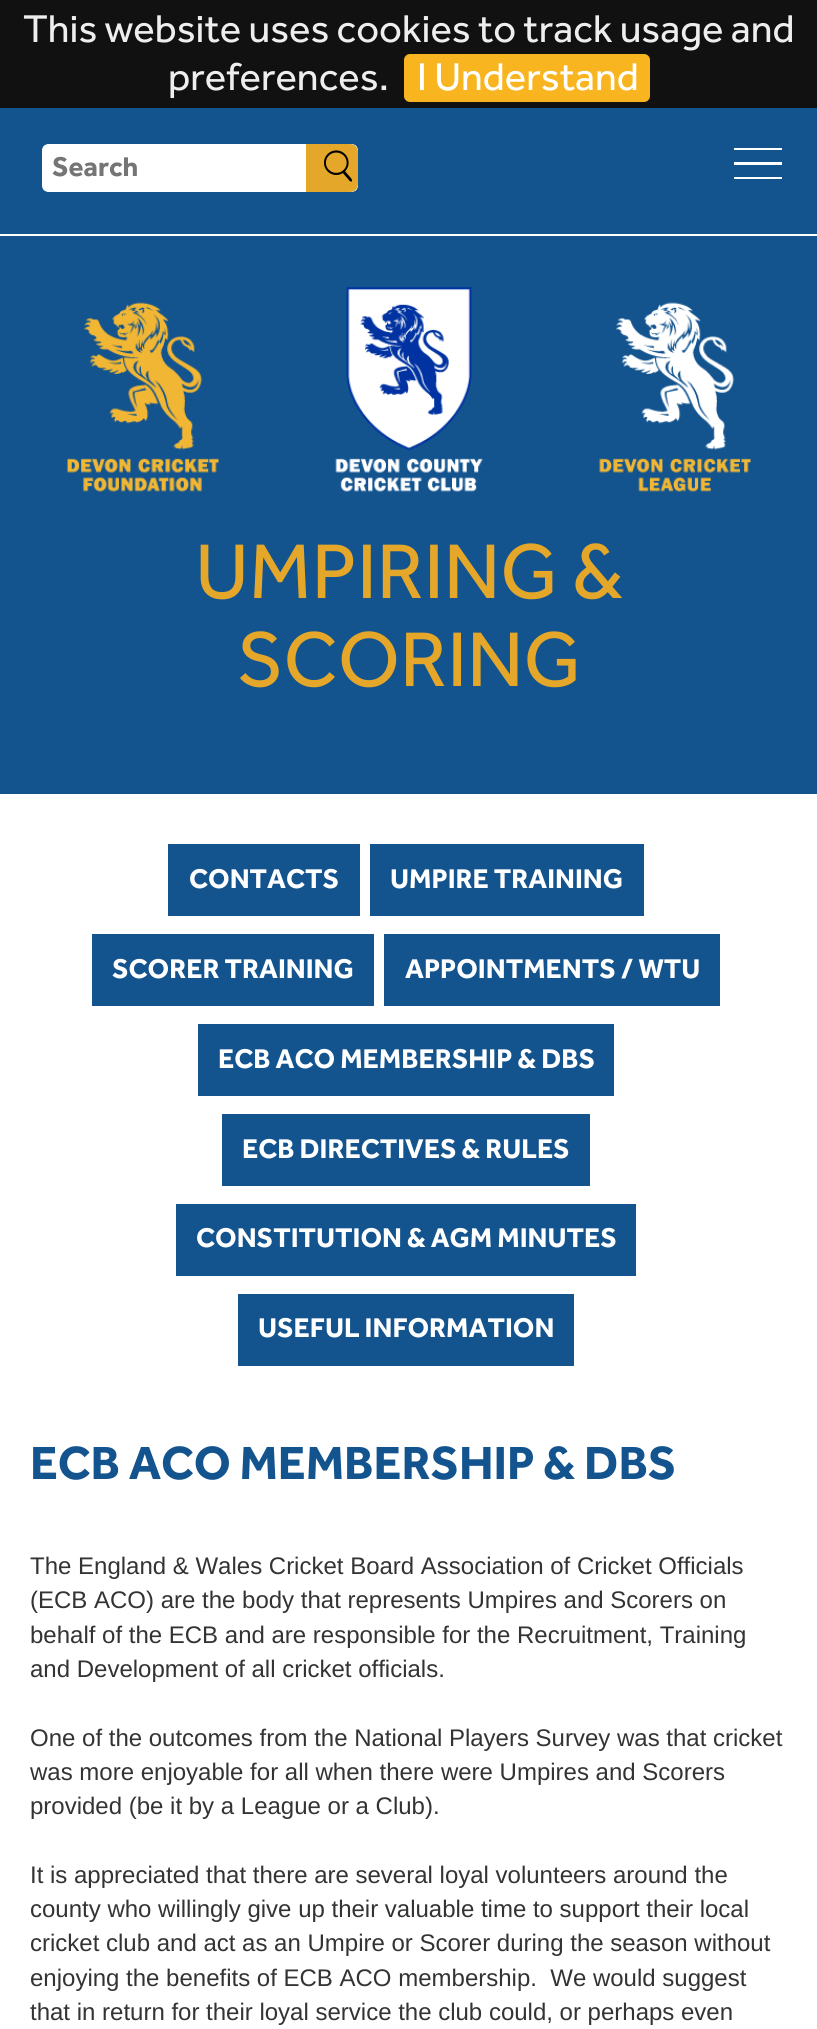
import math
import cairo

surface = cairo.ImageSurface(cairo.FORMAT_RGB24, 817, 2029)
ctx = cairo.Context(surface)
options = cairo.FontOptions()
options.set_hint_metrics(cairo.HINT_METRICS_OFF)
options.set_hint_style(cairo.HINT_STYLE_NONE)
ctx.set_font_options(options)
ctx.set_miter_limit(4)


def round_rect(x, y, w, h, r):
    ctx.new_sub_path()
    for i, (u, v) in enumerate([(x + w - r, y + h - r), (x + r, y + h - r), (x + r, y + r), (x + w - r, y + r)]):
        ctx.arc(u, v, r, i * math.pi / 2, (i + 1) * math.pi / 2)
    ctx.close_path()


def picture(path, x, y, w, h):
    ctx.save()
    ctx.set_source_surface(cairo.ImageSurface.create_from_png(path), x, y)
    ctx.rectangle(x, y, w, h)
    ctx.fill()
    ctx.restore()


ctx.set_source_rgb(1, 1, 1)
ctx.paint()
ctx.set_source_rgb(0.067, 0.067, 0.067)
ctx.rectangle(0, 0, 817, 108)
ctx.fill()
ctx.select_font_face("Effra")
ctx.set_font_size(40)
ctx.set_source_rgb(0.933, 0.933, 0.933)
ctx.move_to(23, 42)
ctx.show_text("This website uses cookies to track usage and")
ctx.move_to(168, 90)
ctx.show_text("preferences.")
ctx.set_source_rgb(0.976, 0.71, 0.125)
round_rect(404, 54, 246, 48, 6)
ctx.fill()
ctx.set_source_rgb(1, 1, 1)
ctx.move_to(417, 90)
ctx.show_text("I Understand")
ctx.set_source_rgb(0.078, 0.329, 0.561)
ctx.rectangle(0, 108, 817, 686)
ctx.fill()
ctx.set_source_rgb(1, 1, 1)
round_rect(41, 143, 318, 50, 7)
ctx.fill_preserve()
ctx.set_source_rgb(0.078, 0.329, 0.561)
ctx.stroke()
ctx.set_source_rgba(1, 1, 1, 0.1)
round_rect(41, 143, 318, 50, 7)
ctx.fill_preserve()
ctx.set_source_rgb(0.078, 0.329, 0.561)
ctx.stroke()
ctx.select_font_face("Effra", cairo.FONT_SLANT_NORMAL, cairo.FONT_WEIGHT_BOLD)
ctx.set_font_size(28)
ctx.set_source_rgb(0.459, 0.459, 0.459)
ctx.move_to(52, 176)
ctx.show_text("Search")
ctx.set_source_rgb(0.894, 0.655, 0.161)
ctx.new_path()
ctx.move_to(306, 144)
ctx.line_to(350, 144)
ctx.curve_to(354.5, 144, 358, 147.5, 358, 152)
ctx.line_to(358, 184)
ctx.curve_to(358, 188.5, 354.5, 192, 350, 192)
ctx.line_to(306, 192)
ctx.close_path()
ctx.fill()
picture("img1.png", 324, 150, 28, 32)
ctx.set_source_rgb(1, 1, 1)
ctx.rectangle(0, 234, 817, 2)
ctx.fill()
picture("img2.png", 67, 302, 152, 190)
picture("img3.png", 335, 287, 148, 205)
picture("img4.png", 599, 302, 152, 190)
ctx.select_font_face("Effra")
ctx.set_font_size(80)
ctx.set_source_rgb(0.894, 0.655, 0.161)
ctx.move_to(195, 598)
ctx.show_text("UMPIRING &")
ctx.move_to(237, 686)
ctx.show_text("SCORING")
ctx.set_source_rgb(1, 1, 1)
ctx.rectangle(734, 148, 48, 2)
ctx.fill()
ctx.rectangle(734, 162, 48, 3)
ctx.fill()
ctx.rectangle(734, 177, 48, 2)
ctx.fill()
ctx.set_source_rgb(0.078, 0.329, 0.561)
ctx.rectangle(168, 844, 192, 72)
ctx.fill()
ctx.select_font_face("Effra", cairo.FONT_SLANT_NORMAL, cairo.FONT_WEIGHT_BOLD)
ctx.set_font_size(28)
ctx.set_source_rgb(1, 1, 1)
ctx.move_to(189, 888)
ctx.show_text("CONTACTS")
ctx.set_source_rgb(0.078, 0.329, 0.561)
ctx.rectangle(370, 844, 274, 72)
ctx.fill()
ctx.set_source_rgb(1, 1, 1)
ctx.move_to(390, 888)
ctx.show_text("UMPIRE TRAINING")
ctx.set_source_rgb(0.078, 0.329, 0.561)
ctx.rectangle(92, 934, 282, 72)
ctx.fill()
ctx.set_source_rgb(1, 1, 1)
ctx.move_to(112, 978)
ctx.show_text("SCORER TRAINING")
ctx.set_source_rgb(0.078, 0.329, 0.561)
ctx.rectangle(384, 934, 336, 72)
ctx.fill()
ctx.set_source_rgb(1, 1, 1)
ctx.move_to(405, 978)
ctx.show_text("APPOINTMENTS / WTU")
ctx.set_source_rgb(0.078, 0.329, 0.561)
ctx.rectangle(198, 1024, 416, 72)
ctx.fill()
ctx.set_source_rgb(1, 1, 1)
ctx.move_to(218, 1068)
ctx.show_text("ECB ACO MEMBERSHIP & DBS")
ctx.set_source_rgb(0.078, 0.329, 0.561)
ctx.rectangle(222, 1114, 368, 72)
ctx.fill()
ctx.set_source_rgb(1, 1, 1)
ctx.move_to(242, 1158)
ctx.show_text("ECB DIRECTIVES & RULES")
ctx.set_source_rgb(0.078, 0.329, 0.561)
ctx.rectangle(176, 1204, 460, 72)
ctx.fill()
ctx.set_source_rgb(1, 1, 1)
ctx.move_to(196, 1247)
ctx.show_text("CONSTITUTION & AGM MINUTES")
ctx.set_source_rgb(0.078, 0.329, 0.561)
ctx.rectangle(238, 1294, 336, 72)
ctx.fill()
ctx.set_source_rgb(1, 1, 1)
ctx.move_to(258, 1337)
ctx.show_text("USEFUL INFORMATION")
ctx.set_font_size(48)
ctx.set_source_rgb(0.078, 0.329, 0.561)
ctx.move_to(30, 1479)
ctx.show_text("ECB ACO MEMBERSHIP & DBS")
ctx.select_font_face("Liberation Sans")
ctx.set_font_size(24)
ctx.set_source_rgb(0.2, 0.2, 0.2)
ctx.move_to(30, 1574)
ctx.show_text("The England & Wales Cricket Board Association of Cricket Officials")
ctx.move_to(30, 1608)
ctx.show_text("(ECB ACO) are the body that represents Umpires and Scorers on")
ctx.move_to(30, 1643)
ctx.show_text("behalf of the ECB and are responsible for the Recruitment, Training")
ctx.move_to(30, 1677)
ctx.show_text("and Development of all cricket officials.")
ctx.move_to(30, 1746)
ctx.show_text("One of the outcomes from the National Players Survey was that cricket")
ctx.move_to(30, 1780)
ctx.show_text("was more enjoyable for all when there were Umpires and Scorers")
ctx.move_to(30, 1814)
ctx.show_text("provided (be it by a League or a Club).")
ctx.move_to(30, 1883)
ctx.show_text("It is appreciated that there are several loyal volunteers around the")
ctx.move_to(30, 1917)
ctx.show_text("county who willingly give up their valuable time to support their local")
ctx.move_to(30, 1951)
ctx.show_text("cricket club and act as an Umpire or Scorer during the season without")
ctx.move_to(30, 1986)
ctx.show_text("enjoying the benefits of ECB ACO membership.  We would suggest")
ctx.move_to(30, 2020)
ctx.show_text("that in return for their loyal service the club could, or perhaps even")
surface.write_to_png("page.png")
